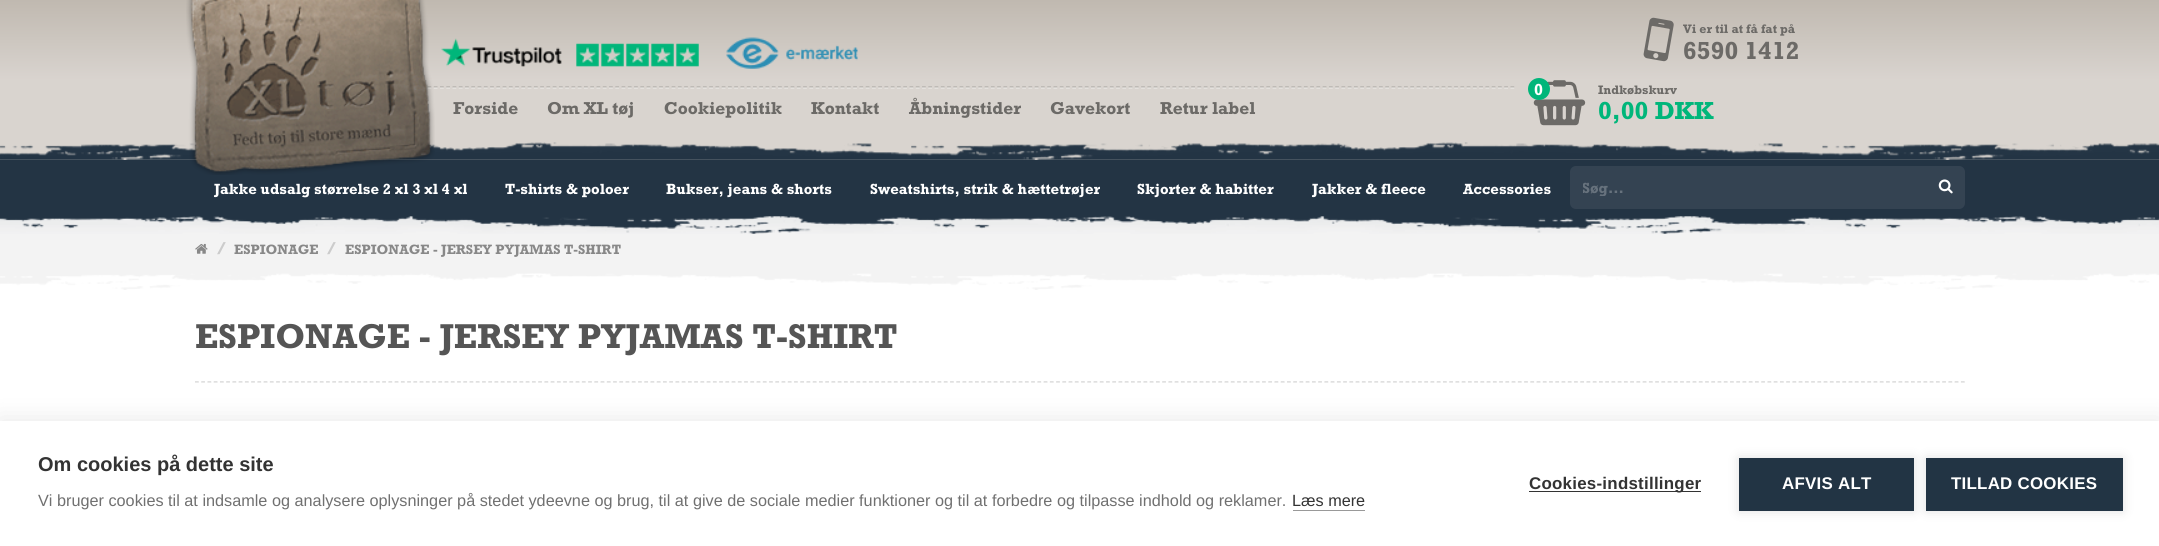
import math
import cairo

surface = cairo.ImageSurface(cairo.FORMAT_RGB24, 2159, 546)
ctx = cairo.Context(surface)
options = cairo.FontOptions()
options.set_hint_metrics(cairo.HINT_METRICS_OFF)
options.set_hint_style(cairo.HINT_STYLE_NONE)
ctx.set_font_options(options)
ctx.set_miter_limit(4)


def spaced_text(x, y, s, letter, word):
    ctx.move_to(x, y)
    for ch in s:
        ctx.show_text(ch)
        ctx.rel_move_to(letter + word * (ch == ' '), 0)


def round_rect(x, y, w, h, r):
    ctx.new_sub_path()
    for i, (u, v) in enumerate([(x + w - r, y + h - r), (x + r, y + h - r), (x + r, y + r), (x + w - r, y + r)]):
        ctx.arc(u, v, r, i * math.pi / 2, (i + 1) * math.pi / 2)
    ctx.close_path()


def shadow(x, y, w, h, r, blur, alpha):
    ctx.push_group_with_content(cairo.CONTENT_ALPHA)
    ctx.set_operator(cairo.OPERATOR_SOURCE)
    for i in range(15, -16, -2):
        e = blur * i / 6
        if min(w, h) + 2 * e > 0:
            ctx.set_source_rgba(0, 0, 0, alpha * math.erfc((i - 1) / 8.5) / 2)
            round_rect(x - e, y - e, w + 2 * e, h + 2 * e, max(0, min(r + e + blur * .6, min(w, h) / 2 + e)))
            ctx.fill()
    ctx.mask(ctx.pop_group())


def picture(path, x, y, w, h):
    ctx.save()
    ctx.set_source_surface(cairo.ImageSurface.create_from_png(path), x, y)
    ctx.rectangle(x, y, w, h)
    ctx.fill()
    ctx.restore()


ctx.set_source_rgb(1, 1, 1)
ctx.paint()
gradient = cairo.LinearGradient(1080, 0, 1080, 160)
gradient.add_color_stop_rgba(0, 0.753, 0.725, 0.69, 1)
gradient.add_color_stop_rgba(0.5, 0.851, 0.831, 0.812, 1)
ctx.set_source(gradient)
ctx.rectangle(0, 0, 2159, 160)
ctx.fill()
ctx.new_path()
ctx.move_to(427.5, 87)
ctx.line_to(1515, 87)
ctx.set_source_rgb(0.682, 0.667, 0.651)
ctx.set_line_width(1.2)
ctx.set_dash([3.75, 2.51])
ctx.stroke()
ctx.new_path()
ctx.move_to(427.5, 88)
ctx.line_to(1515, 88)
ctx.set_source_rgba(1, 1, 1, 0.5)
ctx.stroke()
ctx.set_source_rgb(0.137, 0.204, 0.267)
ctx.rectangle(0, 160, 2159, 55)
ctx.fill()
picture("img6.png", 0, 142, 2159, 18)
picture("img1.png", 186, 0, 249, 175)
picture("img2.png", 441, 38, 258, 29)
picture("img3.png", 726, 37, 132, 32)
ctx.select_font_face("Rockwell", cairo.FONT_SLANT_NORMAL, cairo.FONT_WEIGHT_BOLD)
ctx.set_font_size(17.5)
ctx.set_source_rgb(0.424, 0.416, 0.404)
ctx.move_to(453, 114)
ctx.show_text("Forside")
ctx.move_to(547, 114)
ctx.show_text("Om XL tøj")
ctx.move_to(664, 114)
ctx.show_text("Cookiepolitik")
ctx.move_to(811, 114)
ctx.show_text("Kontakt")
ctx.move_to(909, 114)
ctx.show_text("Åbningstider")
ctx.move_to(1050, 114)
ctx.show_text("Gavekort")
ctx.move_to(1160, 114)
ctx.show_text("Retur label")
picture("img4.png", 1643, 17, 31, 45)
ctx.set_font_size(12.5)
ctx.move_to(1683, 33)
ctx.show_text("Vi er til at få fat på")
ctx.set_font_size(25)
ctx.move_to(1683, 59)
ctx.show_text("6590 1412")
picture("img5.png", 1533, 80, 53, 46)
ctx.set_source_rgb(0, 0.714, 0.478)
ctx.arc(1539, 89, 11, 0, 2 * math.pi)
ctx.fill()
ctx.set_font_size(16.25)
ctx.set_source_rgb(1, 1, 1)
ctx.move_to(1534, 95)
ctx.show_text("0")
ctx.set_font_size(12.5)
ctx.set_source_rgb(0.424, 0.416, 0.404)
ctx.move_to(1598, 94)
ctx.show_text("Indkøbskurv")
ctx.set_font_size(25)
ctx.set_source_rgb(0, 0.714, 0.478)
ctx.move_to(1598, 119)
ctx.show_text("0,00 DKK")
ctx.set_font_size(15)
ctx.set_source_rgb(1, 1, 1)
ctx.move_to(214, 194)
ctx.show_text("Jakke udsalg størrelse 2 xl 3 xl 4 xl")
ctx.move_to(505, 194)
ctx.show_text("T-shirts & poloer")
ctx.move_to(666, 194)
ctx.show_text("Bukser, jeans & shorts")
ctx.move_to(870, 194)
ctx.show_text("Sweatshirts, strik & hættetrøjer")
ctx.move_to(1137, 194)
ctx.show_text("Skjorter & habitter")
ctx.move_to(1312, 194)
ctx.show_text("Jakker & fleece")
ctx.move_to(1463, 194)
ctx.show_text("Accessories")
ctx.set_source_rgb(0.204, 0.263, 0.322)
round_rect(1570, 166, 395, 43, 6)
ctx.fill()
ctx.save()
ctx.rectangle(1583, 179, 337, 17)
ctx.clip()
ctx.set_source_rgb(0.404, 0.447, 0.49)
ctx.move_to(1582, 193)
ctx.show_text("Søg...")
ctx.restore()
picture("img7.png", 1938, 179, 15, 15)
ctx.set_source_rgb(0.953, 0.953, 0.953)
ctx.rectangle(0, 216, 2159, 74)
ctx.fill()
picture("img8.png", 0, 215, 2159, 19)
picture("img9.png", 195, 243, 13, 11)
ctx.set_font_size(17.5)
ctx.set_source_rgb(0.8, 0.8, 0.8)
ctx.move_to(217, 254)
ctx.show_text("/")
ctx.set_font_size(13.75)
ctx.set_source_rgb(0.533, 0.533, 0.533)
ctx.move_to(234, 254)
ctx.show_text("ESPIONAGE")
ctx.set_font_size(17.5)
ctx.set_source_rgb(0.8, 0.8, 0.8)
ctx.move_to(327, 254)
ctx.show_text("/")
ctx.set_font_size(13.75)
ctx.set_source_rgb(0.533, 0.533, 0.533)
ctx.move_to(345, 254)
ctx.show_text("ESPIONAGE - JERSEY PYJAMAS T-SHIRT")
picture("img10.png", 0, 273, 2159, 17)
ctx.set_font_size(35)
ctx.set_source_rgb(0.333, 0.333, 0.333)
ctx.move_to(195, 348)
ctx.show_text("ESPIONAGE - JERSEY PYJAMAS T-SHIRT")
ctx.new_path()
ctx.move_to(195, 382)
ctx.line_to(1965, 382)
ctx.set_source_rgb(0.8, 0.8, 0.8)
ctx.set_dash([3.75, 2.49])
ctx.stroke()
ctx.new_path()
ctx.move_to(195, 383)
ctx.line_to(1965, 383)
ctx.set_source_rgba(1, 1, 1, 0.5)
ctx.stroke()
ctx.set_source_rgb(0, 0, 0)
shadow(0, 421, 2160, 125, 0, 12.5, 0.1)
ctx.set_source_rgb(1, 1, 1)
ctx.rectangle(0, 421, 2159, 125)
ctx.fill()
ctx.select_font_face("Liberation Sans", cairo.FONT_SLANT_NORMAL, cairo.FONT_WEIGHT_BOLD)
ctx.set_font_size(20)
ctx.set_source_rgb(0.2, 0.2, 0.2)
ctx.move_to(38, 471)
ctx.show_text("Om cookies på dette site")
ctx.select_font_face("Liberation Sans")
ctx.set_font_size(16.25)
ctx.set_source_rgb(0.439, 0.439, 0.439)
ctx.move_to(38, 506)
ctx.show_text("Vi bruger cookies til at indsamle og analysere oplysninger på stedet ydeevne og brug, til at give de sociale medier funktioner og til at forbedre og tilpasse indhold og reklamer.")
ctx.set_source_rgb(0.2, 0.2, 0.2)
ctx.move_to(1292, 506)
ctx.show_text("Læs mere")
ctx.set_source_rgb(0.6, 0.6, 0.6)
ctx.rectangle(1293, 510, 72, 1)
ctx.fill()
ctx.set_source_rgb(0.2, 0.2, 0.2)
ctx.rectangle(1529, 491, 172, 1)
ctx.fill()
ctx.select_font_face("Liberation Sans", cairo.FONT_SLANT_NORMAL, cairo.FONT_WEIGHT_BOLD)
ctx.set_font_size(16.9)
spaced_text(1529, 489, "Cookies-indstillinger", 0.25, 0)
ctx.set_source_rgb(0, 0, 0)
shadow(1739, 458, 175, 53, 0, 6, 0.12)
ctx.set_source_rgb(0.133, 0.204, 0.267)
ctx.rectangle(1739, 458, 175, 53)
ctx.fill()
ctx.set_source_rgb(1, 1, 1)
spaced_text(1782, 489, "AFVIS ALT", 0.25, 0)
ctx.set_source_rgb(0, 0, 0)
shadow(1926, 458, 197, 53, 0, 6, 0.12)
ctx.set_source_rgb(0.133, 0.204, 0.267)
ctx.rectangle(1926, 458, 197, 53)
ctx.fill()
ctx.set_source_rgb(1, 1, 1)
spaced_text(1951, 489, "TILLAD COOKIES", 0.25, 0)
surface.write_to_png("page.png")
